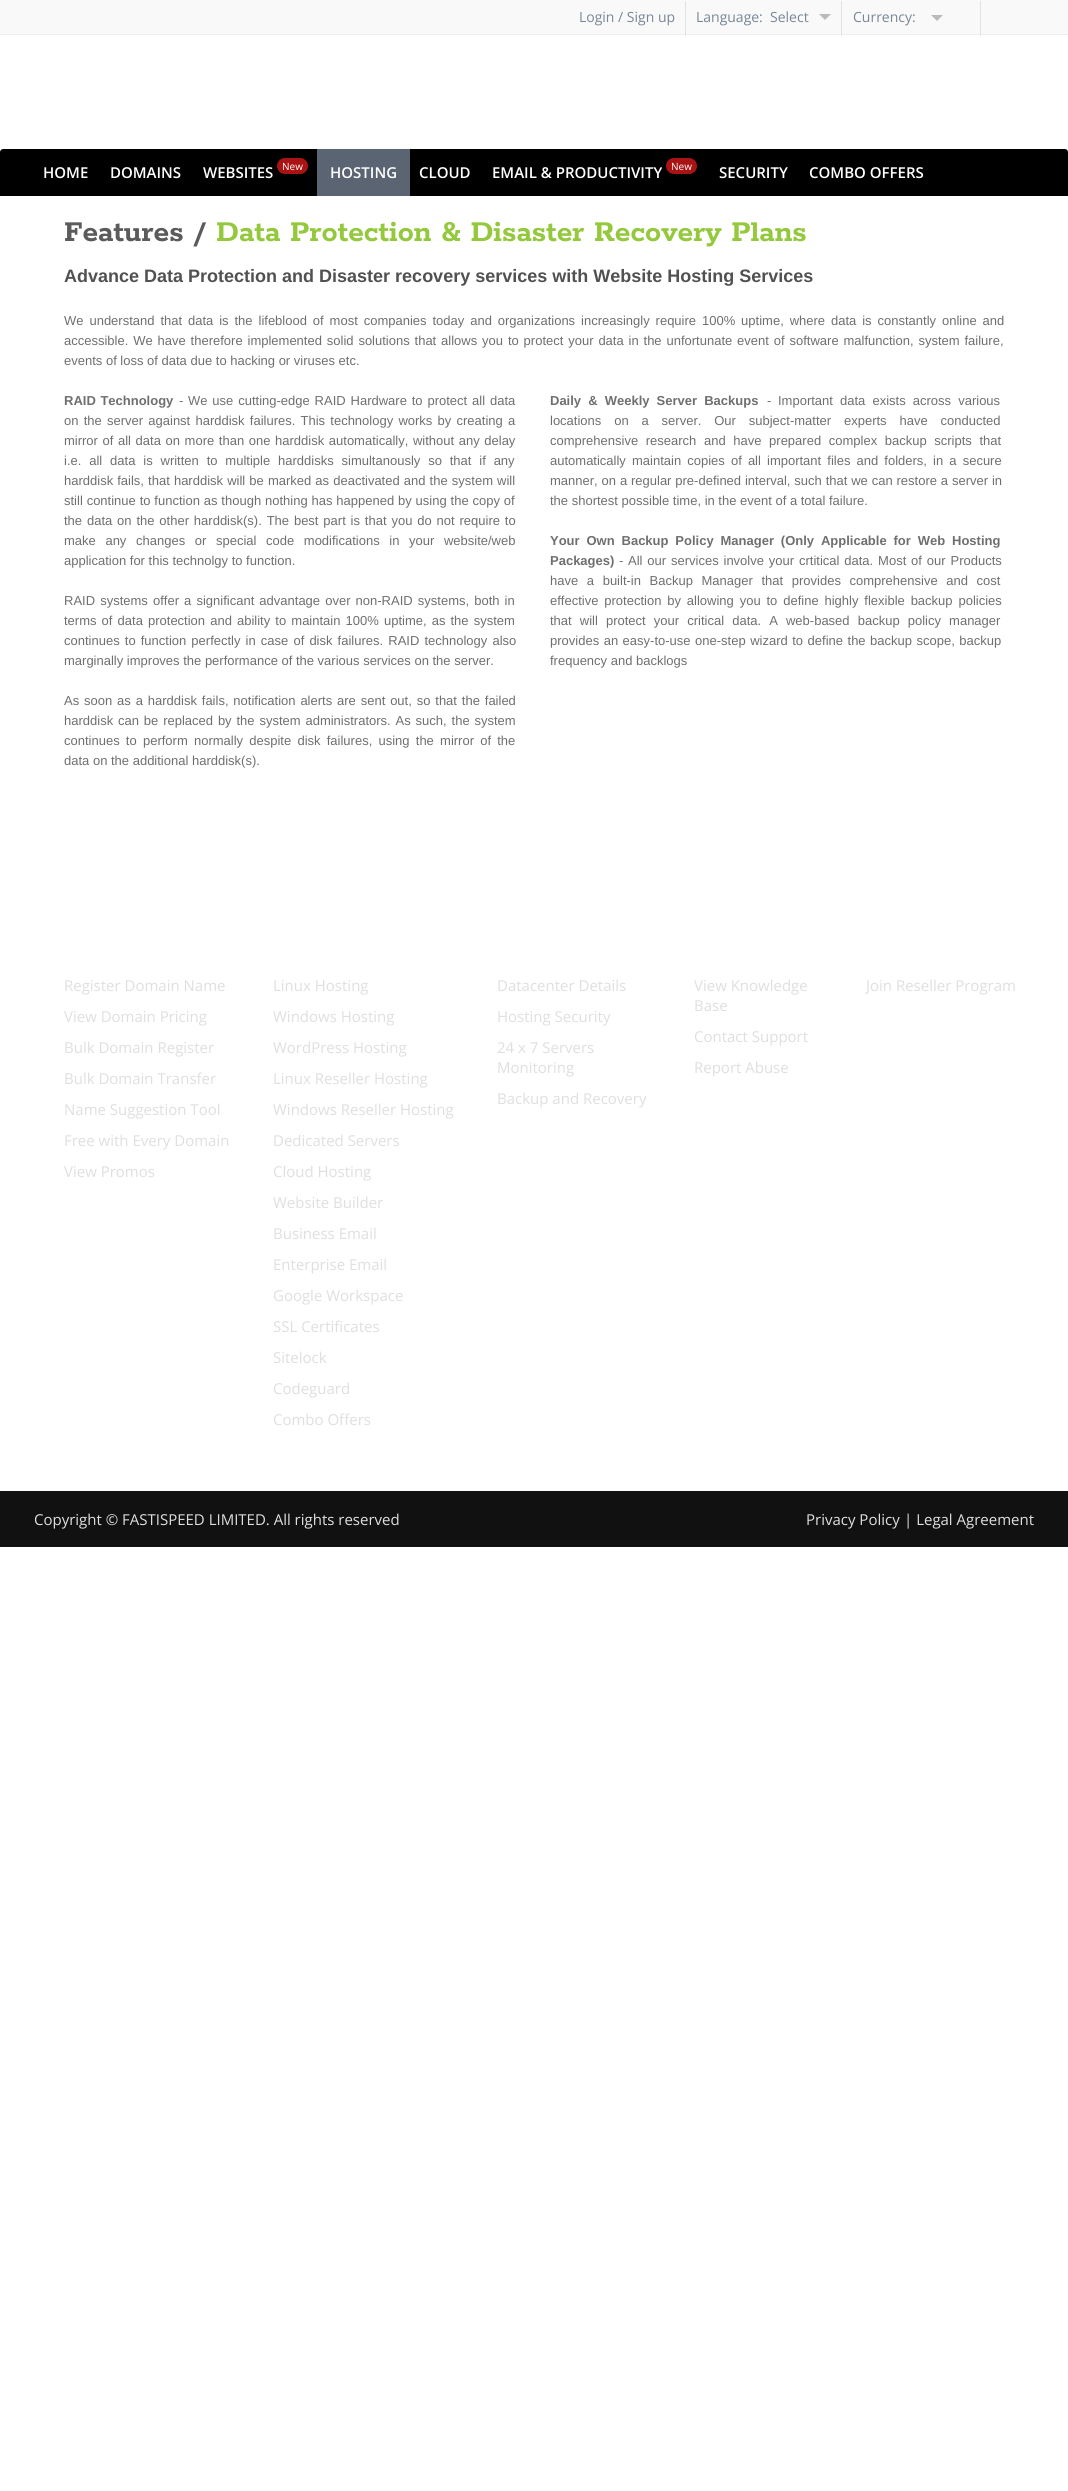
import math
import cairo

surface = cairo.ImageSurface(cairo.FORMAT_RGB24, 1068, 2491)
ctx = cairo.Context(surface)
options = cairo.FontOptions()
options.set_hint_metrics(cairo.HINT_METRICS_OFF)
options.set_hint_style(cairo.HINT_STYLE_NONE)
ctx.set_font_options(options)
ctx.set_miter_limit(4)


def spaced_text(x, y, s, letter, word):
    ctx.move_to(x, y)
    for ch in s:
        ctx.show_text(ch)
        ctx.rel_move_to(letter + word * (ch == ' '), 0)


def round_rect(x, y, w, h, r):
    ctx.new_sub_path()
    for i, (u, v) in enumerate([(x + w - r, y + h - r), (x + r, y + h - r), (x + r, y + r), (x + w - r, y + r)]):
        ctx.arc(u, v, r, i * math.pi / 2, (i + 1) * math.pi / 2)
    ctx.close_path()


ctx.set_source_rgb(1, 1, 1)
ctx.paint()
ctx.set_source_rgb(0.973, 0.973, 0.973)
ctx.rectangle(0, 0, 1068, 34)
ctx.fill()
ctx.set_source_rgb(0.933, 0.933, 0.933)
ctx.rectangle(0, 34, 1068, 1)
ctx.fill()
ctx.set_source_rgb(0.867, 0.89, 0.914)
ctx.rectangle(685, 1, 1, 35)
ctx.fill()
ctx.select_font_face("Open Sans")
ctx.set_font_size(14)
ctx.set_source_rgb(0.471, 0.525, 0.596)
ctx.move_to(579, 22)
ctx.show_text("Login / Sign up")
ctx.set_source_rgb(0.867, 0.89, 0.914)
ctx.rectangle(841, 1, 1, 35)
ctx.fill()
ctx.set_source_rgb(0.471, 0.525, 0.596)
ctx.move_to(696, 22)
ctx.show_text("Language:")
ctx.move_to(770, 22)
ctx.show_text("Select")
ctx.set_source_rgb(0.733, 0.733, 0.733)
ctx.new_path()
ctx.move_to(819, 14)
ctx.line_to(831, 14)
ctx.line_to(825, 20)
ctx.close_path()
ctx.fill()
ctx.set_source_rgb(0.867, 0.89, 0.914)
ctx.rectangle(980, 1, 1, 35)
ctx.fill()
ctx.set_source_rgb(0.471, 0.525, 0.596)
ctx.move_to(853, 22)
ctx.show_text("Currency:")
ctx.set_source_rgb(0.733, 0.733, 0.733)
ctx.new_path()
ctx.move_to(931, 15)
ctx.line_to(943, 15)
ctx.line_to(937, 21)
ctx.close_path()
ctx.fill()
ctx.set_source_rgb(0, 0, 0)
ctx.new_path()
ctx.move_to(3, 149)
ctx.line_to(1065, 149)
ctx.curve_to(1066.5, 149, 1068, 150.5, 1068, 152)
ctx.line_to(1068, 196)
ctx.line_to(0, 196)
ctx.line_to(0, 152)
ctx.curve_to(0, 150.5, 1.5, 149, 3, 149)
ctx.close_path()
ctx.fill()
ctx.select_font_face("Open Sans SemiBold")
ctx.set_font_size(15)
ctx.set_source_rgb(1, 1, 1)
ctx.move_to(43, 178)
ctx.show_text("HOME")
ctx.move_to(110, 178)
ctx.show_text("DOMAINS")
ctx.move_to(203, 178)
ctx.show_text("WEBSITES")
ctx.set_source_rgb(0.667, 0.078, 0.078)
round_rect(277, 158, 31, 16, 8)
ctx.fill()
ctx.select_font_face("Open Sans")
ctx.set_font_size(10)
ctx.set_source_rgb(1, 1, 1)
ctx.move_to(282, 170)
ctx.show_text("New")
ctx.set_source_rgb(0.353, 0.392, 0.447)
ctx.rectangle(317, 149, 93, 47)
ctx.fill()
ctx.select_font_face("Open Sans SemiBold")
ctx.set_font_size(15)
ctx.set_source_rgb(1, 1, 1)
ctx.move_to(330, 178)
ctx.show_text("HOSTING")
ctx.move_to(419, 178)
ctx.show_text("CLOUD")
ctx.move_to(492, 178)
ctx.show_text("EMAIL & PRODUCTIVITY")
ctx.set_source_rgb(0.667, 0.078, 0.078)
round_rect(666, 158, 31, 16, 8)
ctx.fill()
ctx.select_font_face("Open Sans")
ctx.set_font_size(10)
ctx.set_source_rgb(1, 1, 1)
ctx.move_to(671, 170)
ctx.show_text("New")
ctx.select_font_face("Open Sans SemiBold")
ctx.set_font_size(15)
ctx.move_to(719, 178)
ctx.show_text("SECURITY")
ctx.move_to(809, 178)
ctx.show_text("COMBO OFFERS")
ctx.select_font_face("Rokkitt", cairo.FONT_SLANT_NORMAL, cairo.FONT_WEIGHT_BOLD)
ctx.set_font_size(32)
ctx.set_source_rgb(0.357, 0.357, 0.357)
ctx.move_to(64, 241)
ctx.show_text("Features /")
ctx.set_source_rgb(0.58, 0.784, 0.239)
ctx.move_to(216, 241)
ctx.show_text("Data Protection & Disaster Recovery Plans")
ctx.select_font_face("Liberation Sans", cairo.FONT_SLANT_NORMAL, cairo.FONT_WEIGHT_BOLD)
ctx.set_font_size(18)
ctx.set_source_rgb(0.318, 0.318, 0.318)
ctx.move_to(64, 282)
ctx.show_text("Advance Data Protection and Disaster recovery services with Website Hosting Services")
ctx.select_font_face("Liberation Sans")
ctx.set_font_size(13)
ctx.set_source_rgb(0.435, 0.435, 0.435)
spaced_text(64, 325, "We understand that data is the lifeblood of most companies today and organizations increasingly require 100% uptime, where data is constantly online and", 0, 2.3)
spaced_text(64, 345, "accessible. We have therefore implemented solid solutions that allows you to protect your data in the unfortunate event of software malfunction, system failure,", 0, 1.25)
ctx.move_to(64, 365)
ctx.show_text("events of loss of data due to hacking or viruses etc.")
ctx.select_font_face("Liberation Sans", cairo.FONT_SLANT_NORMAL, cairo.FONT_WEIGHT_BOLD)
spaced_text(64, 405, "RAID Technology", 0, 1)
ctx.select_font_face("Liberation Sans")
ctx.move_to(179, 405)
ctx.show_text("-")
spaced_text(188, 405, "We use cutting-edge RAID Hardware to protect all data", 0, 1.25)
spaced_text(64, 425, "on the server against harddisk failures. This technology works by creating a", 0, 1.6)
spaced_text(64, 445, "mirror of all data on more than one harddisk automatically, without any delay", 0, 1)
spaced_text(64, 465, "i.e. all data is written to multiple harddisks simultanously so that if any", 0, 4.25)
spaced_text(64, 485, "harddisk fails, that harddisk will be marked as deactivated and the system will", 0, 0.5)
spaced_text(64, 505, "still continue to function as though nothing has happened by using the copy of", 0, 0.25)
spaced_text(64, 525, "the data on the other harddisk(s). The best part is that you do not require to", 0, 1.25)
spaced_text(64, 545, "make any changes or special code modifications in your website/web", 0, 6)
ctx.move_to(64, 565)
ctx.show_text("application for this technolgy to function.")
spaced_text(64, 605, "RAID systems offer a significant advantage over non-RAID systems, both in", 0, 1.5)
spaced_text(64, 625, "terms of data protection and ability to maintain 100% uptime, as the system", 0, 1.5)
spaced_text(64, 645, "continues to function perfectly in case of disk failures. RAID technology also", 0, 1.5)
ctx.move_to(64, 665)
ctx.show_text("marginally improves the performance of the various services on the server.")
spaced_text(64, 705, "As soon as a harddisk fails, notification alerts are sent out, so that the failed", 0, 1.25)
spaced_text(64, 725, "harddisk can be replaced by the system administrators. As such, the system", 0, 1.25)
spaced_text(64, 745, "continues to perform normally despite disk failures, using the mirror of the", 0, 2.6)
ctx.move_to(64, 765)
ctx.show_text("data on the additional harddisk(s).")
ctx.select_font_face("Liberation Sans", cairo.FONT_SLANT_NORMAL, cairo.FONT_WEIGHT_BOLD)
spaced_text(550, 405, "Daily & Weekly Server Backups", 0, 3.5)
ctx.select_font_face("Liberation Sans")
ctx.move_to(767, 405)
ctx.show_text("-")
spaced_text(778, 405, "Important data exists across various", 0, 3.5)
spaced_text(550, 425, "locations on a server. Our subject-matter experts have conducted", 0, 9.25)
spaced_text(550, 445, "comprehensive research and have prepared complex backup scripts that", 0, 4)
spaced_text(550, 465, "automatically maintain copies of all important files and folders, in a secure", 0, 2.5)
spaced_text(550, 485, "manner, on a regular pre-defined interval, such that we can restore a server in", 0, 0.25)
ctx.move_to(550, 505)
ctx.show_text("the shortest possible time, in the event of a total failure.")
ctx.select_font_face("Liberation Sans", cairo.FONT_SLANT_NORMAL, cairo.FONT_WEIGHT_BOLD)
spaced_text(550, 545, "Your Own Backup Policy Manager (Only Applicable for Web Hosting", 0, 3.25)
ctx.move_to(550, 565)
ctx.show_text("Packages)")
ctx.select_font_face("Liberation Sans")
ctx.move_to(619, 565)
ctx.show_text("-")
spaced_text(628, 565, "All our services involve your crtitical data. Most of our Products", 0, 1.25)
spaced_text(550, 585, "have a built-in Backup Manager that provides comprehensive and cost", 0, 5)
spaced_text(550, 605, "effective protection by allowing you to define highly flexible backup policies", 0, 2.25)
spaced_text(550, 625, "that will protect your critical data. A web-based backup policy manager", 0, 4.5)
spaced_text(550, 645, "provides an easy-to-use one-step wizard to define the backup scope, backup", 0, 0.9)
ctx.move_to(550, 665)
ctx.show_text("frequency and backlogs")
ctx.select_font_face("Open Sans")
ctx.set_font_size(15)
ctx.set_source_rgb(0.875, 0.875, 0.875)
ctx.move_to(64, 991)
ctx.show_text("Register Domain Name")
ctx.move_to(64, 1022)
ctx.show_text("View Domain Pricing")
ctx.move_to(64, 1053)
ctx.show_text("Bulk Domain Register")
ctx.move_to(64, 1084)
ctx.show_text("Bulk Domain Transfer")
ctx.move_to(64, 1115)
ctx.show_text("Name Suggestion Tool")
ctx.move_to(64, 1146)
ctx.show_text("Free with Every Domain")
ctx.move_to(64, 1177)
ctx.show_text("View Promos")
ctx.move_to(273, 991)
ctx.show_text("Linux Hosting")
ctx.move_to(273, 1022)
ctx.show_text("Windows Hosting")
ctx.move_to(273, 1053)
ctx.show_text("WordPress Hosting")
ctx.move_to(273, 1084)
ctx.show_text("Linux Reseller Hosting")
ctx.move_to(273, 1115)
ctx.show_text("Windows Reseller Hosting")
ctx.move_to(273, 1146)
ctx.show_text("Dedicated Servers")
ctx.move_to(273, 1177)
ctx.show_text("Cloud Hosting")
ctx.move_to(273, 1208)
ctx.show_text("Website Builder")
ctx.move_to(273, 1239)
ctx.show_text("Business Email")
ctx.move_to(273, 1270)
ctx.show_text("Enterprise Email")
ctx.move_to(273, 1301)
ctx.show_text("Google Workspace")
ctx.move_to(273, 1332)
ctx.show_text("SSL Certificates")
ctx.move_to(273, 1363)
ctx.show_text("Sitelock")
ctx.move_to(273, 1394)
ctx.show_text("Codeguard")
ctx.move_to(273, 1425)
ctx.show_text("Combo Offers")
ctx.move_to(497, 991)
ctx.show_text("Datacenter Details")
ctx.move_to(497, 1022)
ctx.show_text("Hosting Security")
ctx.move_to(497, 1053)
ctx.show_text("24 x 7 Servers")
ctx.move_to(497, 1073)
ctx.show_text("Monitoring")
ctx.move_to(497, 1104)
ctx.show_text("Backup and Recovery")
ctx.move_to(694, 991)
ctx.show_text("View Knowledge")
ctx.move_to(694, 1011)
ctx.show_text("Base")
ctx.move_to(694, 1042)
ctx.show_text("Contact Support")
ctx.move_to(694, 1073)
ctx.show_text("Report Abuse")
ctx.move_to(866, 991)
ctx.show_text("Join Reseller Program")
ctx.set_source_rgb(0.067, 0.067, 0.067)
ctx.rectangle(0, 1491, 1068, 56)
ctx.fill()
ctx.set_source_rgb(0.875, 0.875, 0.875)
ctx.move_to(34, 1525)
ctx.show_text("Copyright © FASTISPEED LIMITED. All rights reserved")
ctx.move_to(806, 1525)
ctx.show_text("Privacy Policy")
ctx.move_to(904, 1525)
ctx.show_text("| Legal Agreement")
surface.write_to_png("page.png")
